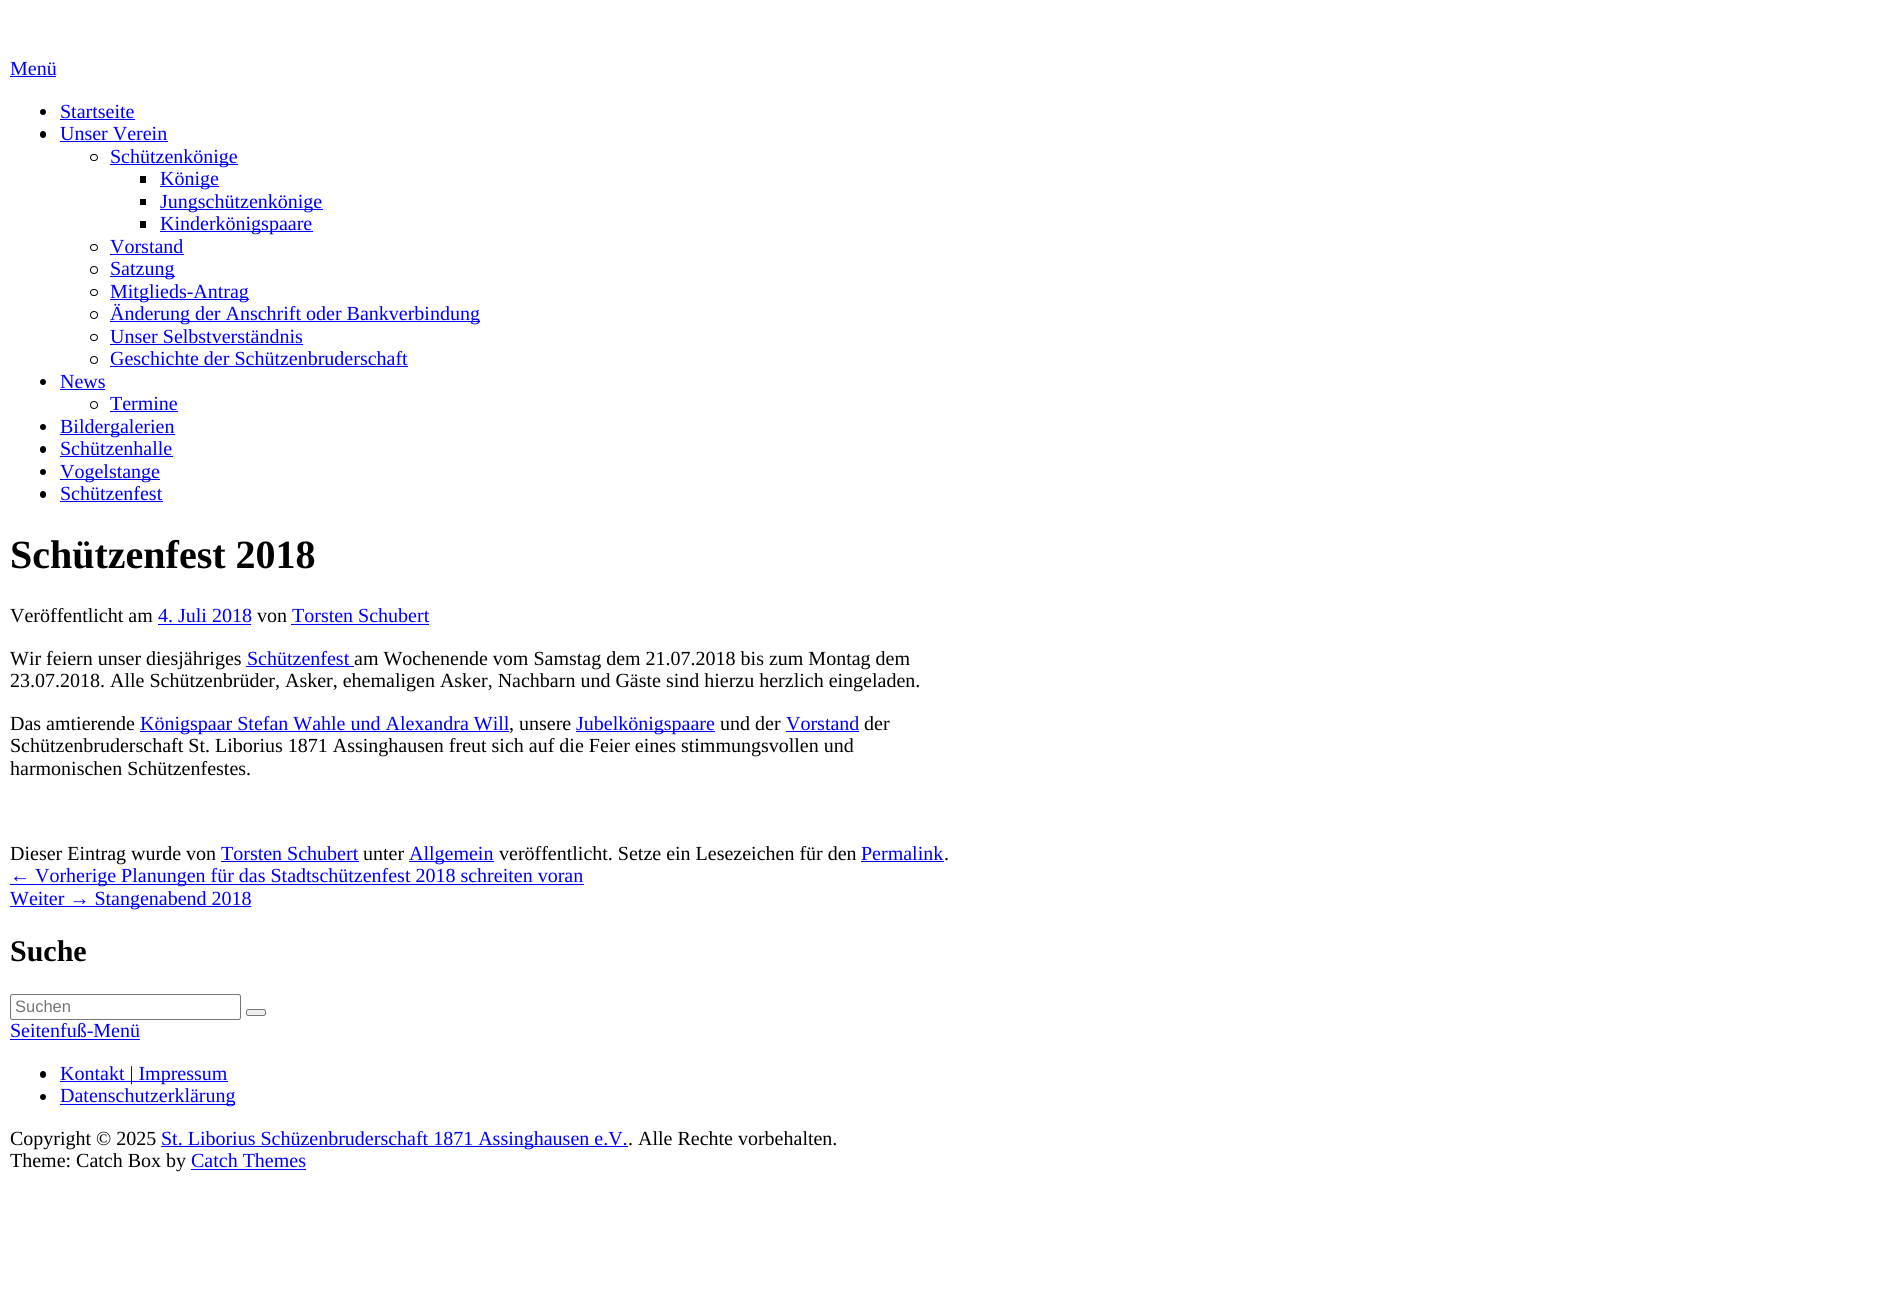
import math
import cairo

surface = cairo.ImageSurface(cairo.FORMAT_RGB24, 1881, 1309)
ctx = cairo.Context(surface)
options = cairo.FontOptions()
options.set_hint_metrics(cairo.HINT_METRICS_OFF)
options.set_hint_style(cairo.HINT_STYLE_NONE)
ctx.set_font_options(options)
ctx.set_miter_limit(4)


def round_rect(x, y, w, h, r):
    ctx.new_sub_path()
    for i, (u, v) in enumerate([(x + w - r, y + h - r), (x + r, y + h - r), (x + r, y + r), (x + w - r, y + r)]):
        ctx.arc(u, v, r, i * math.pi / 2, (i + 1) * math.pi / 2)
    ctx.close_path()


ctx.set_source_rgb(1, 1, 1)
ctx.paint()
ctx.select_font_face("Liberation Serif")
ctx.set_font_size(20)
ctx.set_source_rgb(0, 0, 0.933)
ctx.move_to(10, 75)
ctx.show_text("Menü")
ctx.rectangle(10, 76, 46, 1)
ctx.fill()
ctx.set_source_rgb(0, 0, 0)
ctx.arc(43, 112, 3, 0, 2 * math.pi)
ctx.fill()
ctx.set_source_rgb(0, 0, 0.933)
ctx.move_to(60, 118)
ctx.show_text("Startseite")
ctx.rectangle(60, 119, 75, 1)
ctx.fill()
ctx.set_source_rgb(0, 0, 0)
round_rect(40, 131, 6, 7, 3)
ctx.fill()
ctx.set_source_rgb(0, 0, 0.933)
ctx.move_to(60, 140)
ctx.show_text("Unser Verein")
ctx.rectangle(60, 141, 108, 1)
ctx.fill()
round_rect(90.5, 154.5, 7, 6, 3)
ctx.set_source_rgb(0, 0, 0)
ctx.set_line_width(1)
ctx.stroke()
ctx.set_source_rgb(0, 0, 0.933)
ctx.rectangle(110, 164, 128, 1)
ctx.fill()
ctx.move_to(110, 163)
ctx.show_text("Schützenkönige")
ctx.set_source_rgb(0, 0, 0)
ctx.rectangle(140, 176, 6, 7)
ctx.fill()
ctx.set_source_rgb(0, 0, 0.933)
ctx.rectangle(160, 186, 59, 1)
ctx.fill()
ctx.move_to(160, 185)
ctx.show_text("Könige")
ctx.set_source_rgb(0, 0, 0)
ctx.rectangle(140, 199, 6, 6)
ctx.fill()
ctx.set_source_rgb(0, 0, 0.933)
ctx.rectangle(160, 209, 163, 1)
ctx.fill()
ctx.move_to(160, 208)
ctx.show_text("Jungschützenkönige")
ctx.set_source_rgb(0, 0, 0)
ctx.rectangle(140, 221, 6, 7)
ctx.fill()
ctx.set_source_rgb(0, 0, 0.933)
ctx.rectangle(160, 231, 153, 1)
ctx.fill()
ctx.move_to(160, 230)
ctx.show_text("Kinderkönigspaare")
round_rect(90.5, 244.5, 7, 6, 3)
ctx.set_source_rgb(0, 0, 0)
ctx.stroke()
ctx.set_source_rgb(0, 0, 0.933)
ctx.move_to(110, 253)
ctx.show_text("Vorstand")
ctx.rectangle(110, 254, 74, 1)
ctx.fill()
ctx.arc(94, 270, 3.5, 0, 2 * math.pi)
ctx.set_source_rgb(0, 0, 0)
ctx.stroke()
ctx.set_source_rgb(0, 0, 0.933)
ctx.rectangle(110, 276, 65, 1)
ctx.fill()
ctx.move_to(110, 275)
ctx.show_text("Satzung")
round_rect(90.5, 289.5, 7, 6, 3)
ctx.set_source_rgb(0, 0, 0)
ctx.stroke()
ctx.set_source_rgb(0, 0, 0.933)
ctx.rectangle(110, 299, 139, 1)
ctx.fill()
ctx.move_to(110, 298)
ctx.show_text("Mitglieds-Antrag")
ctx.new_path()
ctx.arc(94, 315, 3.5, 0, 2 * math.pi)
ctx.set_source_rgb(0, 0, 0)
ctx.stroke()
ctx.set_source_rgb(0, 0, 0.933)
ctx.rectangle(110, 321, 370, 1)
ctx.fill()
ctx.move_to(110, 320)
ctx.show_text("Änderung der Anschrift oder Bankverbindung")
round_rect(90.5, 334.5, 7, 6, 3)
ctx.set_source_rgb(0, 0, 0)
ctx.stroke()
ctx.set_source_rgb(0, 0, 0.933)
ctx.move_to(110, 343)
ctx.show_text("Unser Selbstverständnis")
ctx.rectangle(110, 344, 193, 1)
ctx.fill()
ctx.arc(94, 360, 3.5, 0, 2 * math.pi)
ctx.set_source_rgb(0, 0, 0)
ctx.stroke()
ctx.set_source_rgb(0, 0, 0.933)
ctx.move_to(110, 365)
ctx.show_text("Geschichte der Schützenbruderschaft")
ctx.rectangle(110, 366, 298, 1)
ctx.fill()
ctx.set_source_rgb(0, 0, 0)
ctx.arc(43, 382, 3, 0, 2 * math.pi)
ctx.fill()
ctx.set_source_rgb(0, 0, 0.933)
ctx.move_to(60, 388)
ctx.show_text("News")
ctx.rectangle(60, 389, 45, 1)
ctx.fill()
ctx.arc(94, 405, 3.5, 0, 2 * math.pi)
ctx.set_source_rgb(0, 0, 0)
ctx.stroke()
ctx.set_source_rgb(0, 0, 0.933)
ctx.move_to(110, 410)
ctx.show_text("Termine")
ctx.rectangle(110, 411, 68, 1)
ctx.fill()
ctx.set_source_rgb(0, 0, 0)
ctx.arc(43, 427, 3, 0, 2 * math.pi)
ctx.fill()
ctx.set_source_rgb(0, 0, 0.933)
ctx.rectangle(60, 434, 115, 1)
ctx.fill()
ctx.move_to(60, 433)
ctx.show_text("Bildergalerien")
ctx.set_source_rgb(0, 0, 0)
round_rect(40, 446, 6, 7, 3)
ctx.fill()
ctx.set_source_rgb(0, 0, 0.933)
ctx.move_to(60, 455)
ctx.show_text("Schützenhalle")
ctx.rectangle(60, 456, 113, 1)
ctx.fill()
ctx.set_source_rgb(0, 0, 0)
ctx.arc(43, 472, 3, 0, 2 * math.pi)
ctx.fill()
ctx.set_source_rgb(0, 0, 0.933)
ctx.rectangle(60, 479, 100, 1)
ctx.fill()
ctx.move_to(60, 478)
ctx.show_text("Vogelstange")
ctx.set_source_rgb(0, 0, 0)
round_rect(40, 491, 6, 7, 3)
ctx.fill()
ctx.set_source_rgb(0, 0, 0.933)
ctx.move_to(60, 500)
ctx.show_text("Schützenfest")
ctx.rectangle(60, 501, 103, 1)
ctx.fill()
ctx.select_font_face("Liberation Serif", cairo.FONT_SLANT_NORMAL, cairo.FONT_WEIGHT_BOLD)
ctx.set_font_size(40)
ctx.set_source_rgb(0, 0, 0)
ctx.move_to(10, 568)
ctx.show_text("Schützenfest 2018")
ctx.select_font_face("Liberation Serif")
ctx.set_font_size(20)
ctx.move_to(10, 622)
ctx.show_text("Veröffentlicht am")
ctx.set_source_rgb(0, 0, 0.933)
ctx.move_to(158, 622)
ctx.show_text("4. Juli 2018")
ctx.rectangle(158, 624, 93, 1)
ctx.fill()
ctx.set_source_rgb(0, 0, 0)
ctx.move_to(257, 622)
ctx.show_text("von")
ctx.set_source_rgb(0, 0, 0.933)
ctx.rectangle(291, 624, 138, 1)
ctx.fill()
ctx.move_to(292, 622)
ctx.show_text("Torsten Schubert")
ctx.set_source_rgb(0, 0, 0)
ctx.move_to(10, 665)
ctx.show_text("Wir feiern unser diesjähriges")
ctx.set_source_rgb(0, 0, 0.933)
ctx.move_to(247, 665)
ctx.show_text("Schützenfest")
ctx.rectangle(246, 666, 108, 1)
ctx.fill()
ctx.set_source_rgb(0, 0, 0)
ctx.move_to(354, 665)
ctx.show_text("am Wochenende vom Samstag dem 21.07.2018 bis zum Montag dem")
ctx.move_to(10, 687)
ctx.show_text("23.07.2018. Alle Schützenbrüder, Asker, ehemaligen Asker, Nachbarn und Gäste sind hierzu herzlich eingeladen.")
ctx.move_to(10, 730)
ctx.show_text("Das amtierende")
ctx.set_source_rgb(0, 0, 0.933)
ctx.rectangle(140, 731, 369, 1)
ctx.fill()
ctx.move_to(140, 730)
ctx.show_text("Königspaar Stefan Wahle und Alexandra Will")
ctx.set_source_rgb(0, 0, 0)
ctx.move_to(509, 730)
ctx.show_text(", unsere")
ctx.set_source_rgb(0, 0, 0.933)
ctx.rectangle(576, 731, 139, 1)
ctx.fill()
ctx.move_to(576, 730)
ctx.show_text("Jubelkönigspaare")
ctx.set_source_rgb(0, 0, 0)
ctx.move_to(720, 730)
ctx.show_text("und der")
ctx.set_source_rgb(0, 0, 0.933)
ctx.move_to(786, 730)
ctx.show_text("Vorstand")
ctx.rectangle(786, 731, 73, 1)
ctx.fill()
ctx.set_source_rgb(0, 0, 0)
ctx.move_to(864, 730)
ctx.show_text("der")
ctx.move_to(10, 752)
ctx.show_text("Schützenbruderschaft St. Liborius 1871 Assinghausen freut sich auf die Feier eines stimmungsvollen und")
ctx.move_to(10, 775)
ctx.show_text("harmonischen Schützenfestes.")
ctx.move_to(10, 860)
ctx.show_text("Dieser Eintrag wurde von")
ctx.set_source_rgb(0, 0, 0.933)
ctx.move_to(221, 860)
ctx.show_text("Torsten Schubert")
ctx.rectangle(221, 861, 138, 1)
ctx.fill()
ctx.set_source_rgb(0, 0, 0)
ctx.move_to(363, 860)
ctx.show_text("unter")
ctx.set_source_rgb(0, 0, 0.933)
ctx.rectangle(409, 861, 85, 1)
ctx.fill()
ctx.move_to(409, 860)
ctx.show_text("Allgemein")
ctx.set_source_rgb(0, 0, 0)
ctx.move_to(499, 860)
ctx.show_text("veröffentlicht. Setze ein Lesezeichen für den")
ctx.set_source_rgb(0, 0, 0.933)
ctx.move_to(861, 860)
ctx.show_text("Permalink")
ctx.rectangle(861, 861, 83, 1)
ctx.fill()
ctx.set_source_rgb(0, 0, 0)
ctx.move_to(944, 860)
ctx.show_text(".")
ctx.set_source_rgb(0, 0, 0.933)
ctx.rectangle(10, 884, 574, 1)
ctx.fill()
ctx.move_to(10, 882)
ctx.show_text("← Vorherige Planungen für das Stadtschützenfest 2018 schreiten voran")
ctx.rectangle(10, 906, 241, 1)
ctx.fill()
ctx.move_to(10, 905)
ctx.show_text("Weiter → Stangenabend 2018")
ctx.select_font_face("Liberation Serif", cairo.FONT_SLANT_NORMAL, cairo.FONT_WEIGHT_BOLD)
ctx.set_font_size(30)
ctx.set_source_rgb(0, 0, 0)
ctx.move_to(10, 961)
ctx.show_text("Suche")
round_rect(10.5, 994.5, 230, 25, 2)
ctx.set_source_rgb(0.463, 0.463, 0.463)
ctx.stroke()
ctx.select_font_face("Liberation Sans")
ctx.set_font_size(16.5)
ctx.set_source_rgb(0.459, 0.459, 0.459)
ctx.move_to(15, 1012)
ctx.show_text("Suchen")
ctx.set_source_rgb(0.937, 0.937, 0.937)
round_rect(246.5, 1009.5, 19, 6, 2)
ctx.fill_preserve()
ctx.set_source_rgb(0.463, 0.463, 0.463)
ctx.stroke()
ctx.select_font_face("Liberation Serif")
ctx.set_font_size(20)
ctx.set_source_rgb(0, 0, 0.933)
ctx.move_to(10, 1037)
ctx.show_text("Seitenfuß-Menü")
ctx.rectangle(10, 1039, 130, 1)
ctx.fill()
ctx.set_source_rgb(0, 0, 0)
round_rect(40, 1071, 6, 7, 3)
ctx.fill()
ctx.set_source_rgb(0, 0, 0.933)
ctx.rectangle(60, 1081, 168, 1)
ctx.fill()
ctx.move_to(60, 1080)
ctx.show_text("Kontakt | Impressum")
ctx.set_source_rgb(0, 0, 0)
ctx.new_path()
ctx.arc(43, 1097, 3, 0, 2 * math.pi)
ctx.fill()
ctx.set_source_rgb(0, 0, 0.933)
ctx.rectangle(60, 1104, 175, 1)
ctx.fill()
ctx.move_to(60, 1102)
ctx.show_text("Datenschutzerklärung")
ctx.set_source_rgb(0, 0, 0)
ctx.move_to(10, 1145)
ctx.show_text("Copyright © 2025")
ctx.set_source_rgb(0, 0, 0.933)
ctx.rectangle(161, 1146, 467, 1)
ctx.fill()
ctx.move_to(161, 1145)
ctx.show_text("St. Liborius Schüzenbruderschaft 1871 Assinghausen e.V.")
ctx.set_source_rgb(0, 0, 0)
ctx.move_to(628, 1145)
ctx.show_text(". Alle Rechte vorbehalten.")
ctx.move_to(10, 1167)
ctx.show_text("Theme: Catch Box by")
ctx.set_source_rgb(0, 0, 0.933)
ctx.move_to(191, 1167)
ctx.show_text("Catch Themes")
ctx.rectangle(191, 1169, 115, 1)
ctx.fill()
surface.write_to_png("page.png")
